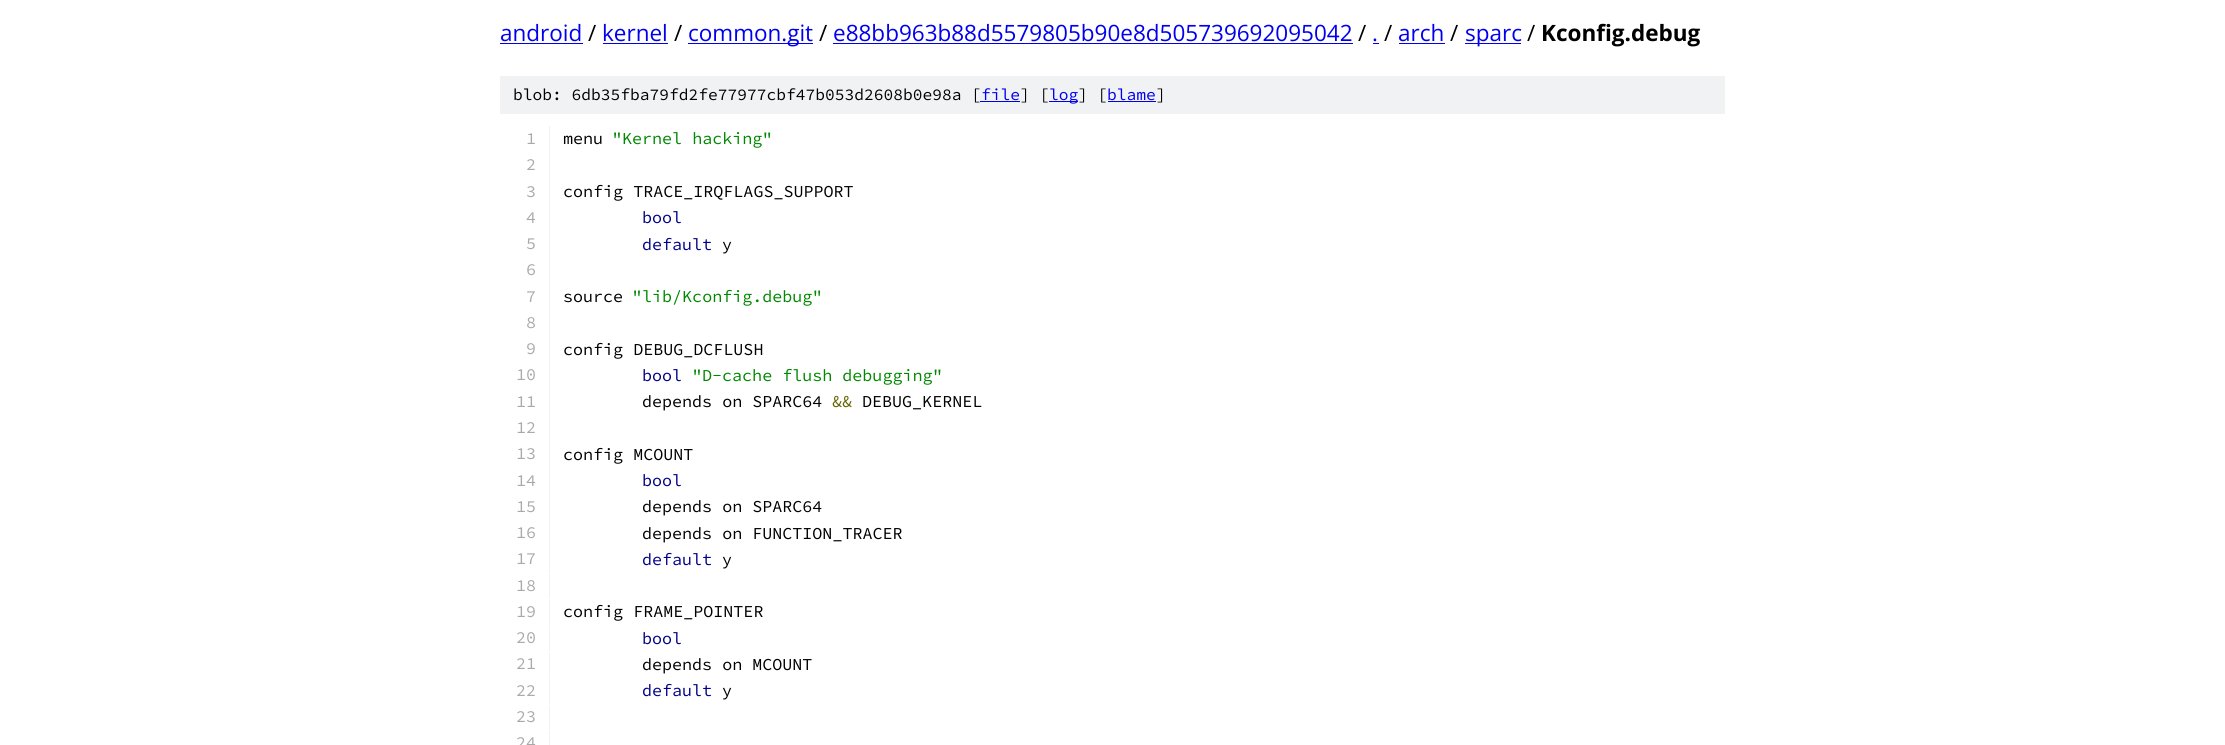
import math
import cairo

surface = cairo.ImageSurface(cairo.FORMAT_RGB24, 2225, 745)
ctx = cairo.Context(surface)
options = cairo.FontOptions()
options.set_hint_metrics(cairo.HINT_METRICS_OFF)
options.set_hint_style(cairo.HINT_STYLE_NONE)
ctx.set_font_options(options)
ctx.set_miter_limit(4)


ctx.set_source_rgb(1, 1, 1)
ctx.paint()
ctx.select_font_face("Open Sans")
ctx.set_font_size(22.5)
ctx.set_source_rgb(0, 0, 0.933)
ctx.move_to(500, 41)
ctx.show_text("android")
ctx.rectangle(500, 43, 83, 1)
ctx.fill()
ctx.set_source_rgb(0, 0, 0)
ctx.move_to(588, 41)
ctx.show_text("/")
ctx.set_source_rgb(0, 0, 0.933)
ctx.move_to(602, 41)
ctx.show_text("kernel")
ctx.rectangle(603, 43, 65, 1)
ctx.fill()
ctx.set_source_rgb(0, 0, 0)
ctx.move_to(674, 41)
ctx.show_text("/")
ctx.set_source_rgb(0, 0, 0.933)
ctx.rectangle(688, 43, 125, 1)
ctx.fill()
ctx.move_to(688, 41)
ctx.show_text("common.git")
ctx.set_source_rgb(0, 0, 0)
ctx.move_to(819, 41)
ctx.show_text("/")
ctx.set_source_rgb(0, 0, 0.933)
ctx.move_to(833, 41)
ctx.show_text("e88bb963b88d5579805b90e8d505739692095042")
ctx.rectangle(833, 43, 520, 1)
ctx.fill()
ctx.set_source_rgb(0, 0, 0)
ctx.move_to(1358, 41)
ctx.show_text("/")
ctx.set_source_rgb(0, 0, 0.933)
ctx.move_to(1372, 41)
ctx.show_text(".")
ctx.rectangle(1373, 43, 6, 1)
ctx.fill()
ctx.set_source_rgb(0, 0, 0)
ctx.move_to(1384, 41)
ctx.show_text("/")
ctx.set_source_rgb(0, 0, 0.933)
ctx.move_to(1398, 41)
ctx.show_text("arch")
ctx.rectangle(1399, 43, 46, 1)
ctx.fill()
ctx.set_source_rgb(0, 0, 0)
ctx.move_to(1450, 41)
ctx.show_text("/")
ctx.set_source_rgb(0, 0, 0.933)
ctx.rectangle(1465, 43, 56, 1)
ctx.fill()
ctx.move_to(1465, 41)
ctx.show_text("sparc")
ctx.set_source_rgb(0, 0, 0)
ctx.move_to(1527, 41)
ctx.show_text("/")
ctx.select_font_face("Open Sans", cairo.FONT_SLANT_NORMAL, cairo.FONT_WEIGHT_BOLD)
ctx.move_to(1541, 41)
ctx.show_text("Kconfig.debug")
ctx.set_source_rgb(0.945, 0.949, 0.953)
ctx.rectangle(500, 76, 1225, 38)
ctx.fill()
ctx.select_font_face("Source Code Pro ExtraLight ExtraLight")
ctx.set_font_size(16.25)
ctx.set_source_rgb(0, 0, 0)
ctx.move_to(513, 100)
ctx.show_text("blob: 6db35fba79fd2fe77977cbf47b053d2608b0e98a [")
ctx.set_source_rgb(0, 0, 0.933)
ctx.move_to(981, 100)
ctx.show_text("file")
ctx.rectangle(980, 101, 40, 1)
ctx.fill()
ctx.set_source_rgb(0, 0, 0)
ctx.move_to(1020, 100)
ctx.show_text("] [")
ctx.set_source_rgb(0, 0, 0.933)
ctx.rectangle(1049, 101, 29, 1)
ctx.fill()
ctx.move_to(1049, 100)
ctx.show_text("log")
ctx.set_source_rgb(0, 0, 0)
ctx.move_to(1078, 100)
ctx.show_text("] [")
ctx.set_source_rgb(0, 0, 0.933)
ctx.move_to(1107, 100)
ctx.show_text("blame")
ctx.rectangle(1108, 101, 48, 1)
ctx.fill()
ctx.set_source_rgb(0, 0, 0)
ctx.move_to(1156, 100)
ctx.show_text("]")
ctx.set_source_rgb(0.945, 0.949, 0.953)
ctx.rectangle(549, 126, 1, 447)
ctx.fill()
ctx.set_font_size(16.7)
ctx.set_source_rgb(0.667, 0.667, 0.667)
ctx.move_to(526, 144)
ctx.show_text("1")
ctx.set_source_rgb(0, 0, 0)
ctx.move_to(563, 144)
ctx.show_text("menu")
ctx.set_source_rgb(0, 0.533, 0)
ctx.move_to(612, 144)
ctx.show_text("\"Kernel hacking\"")
ctx.set_source_rgb(0.667, 0.667, 0.667)
ctx.move_to(526, 170)
ctx.show_text("2")
ctx.move_to(526, 197)
ctx.show_text("3")
ctx.set_source_rgb(0, 0, 0)
ctx.move_to(563, 197)
ctx.show_text("config TRACE_IRQFLAGS_SUPPORT")
ctx.set_source_rgb(0.667, 0.667, 0.667)
ctx.move_to(526, 223)
ctx.show_text("4")
ctx.set_source_rgb(0, 0, 0.533)
ctx.move_to(642, 223)
ctx.show_text("bool")
ctx.set_source_rgb(0.667, 0.667, 0.667)
ctx.move_to(526, 249)
ctx.show_text("5")
ctx.set_source_rgb(0, 0, 0.533)
ctx.move_to(642, 250)
ctx.show_text("default")
ctx.set_source_rgb(0, 0, 0)
ctx.move_to(722, 250)
ctx.show_text("y")
ctx.set_source_rgb(0.667, 0.667, 0.667)
ctx.move_to(526, 275)
ctx.show_text("6")
ctx.move_to(526, 302)
ctx.show_text("7")
ctx.set_source_rgb(0, 0, 0)
ctx.move_to(563, 302)
ctx.show_text("source")
ctx.set_source_rgb(0, 0.533, 0)
ctx.move_to(632, 302)
ctx.show_text("\"lib/Kconfig.debug\"")
ctx.set_source_rgb(0.667, 0.667, 0.667)
ctx.move_to(526, 328)
ctx.show_text("8")
ctx.move_to(526, 354)
ctx.show_text("9")
ctx.set_source_rgb(0, 0, 0)
ctx.move_to(563, 355)
ctx.show_text("config DEBUG_DCFLUSH")
ctx.set_source_rgb(0.667, 0.667, 0.667)
ctx.move_to(516, 380)
ctx.show_text("10")
ctx.set_source_rgb(0, 0, 0.533)
ctx.move_to(642, 381)
ctx.show_text("bool")
ctx.set_source_rgb(0, 0.533, 0)
ctx.move_to(692, 381)
ctx.show_text("\"D-cache flush debugging\"")
ctx.set_source_rgb(0.667, 0.667, 0.667)
ctx.move_to(516, 407)
ctx.show_text("11")
ctx.set_source_rgb(0, 0, 0)
ctx.move_to(642, 407)
ctx.show_text("depends on SPARC64")
ctx.set_source_rgb(0.4, 0.4, 0)
ctx.move_to(832, 407)
ctx.show_text("&&")
ctx.set_source_rgb(0, 0, 0)
ctx.move_to(862, 407)
ctx.show_text("DEBUG_KERNEL")
ctx.set_source_rgb(0.667, 0.667, 0.667)
ctx.move_to(516, 433)
ctx.show_text("12")
ctx.move_to(516, 459)
ctx.show_text("13")
ctx.set_source_rgb(0, 0, 0)
ctx.move_to(563, 460)
ctx.show_text("config MCOUNT")
ctx.set_source_rgb(0.667, 0.667, 0.667)
ctx.move_to(516, 486)
ctx.show_text("14")
ctx.set_source_rgb(0, 0, 0.533)
ctx.move_to(642, 486)
ctx.show_text("bool")
ctx.set_source_rgb(0.667, 0.667, 0.667)
ctx.move_to(516, 512)
ctx.show_text("15")
ctx.set_source_rgb(0, 0, 0)
ctx.move_to(642, 512)
ctx.show_text("depends on SPARC64")
ctx.set_source_rgb(0.667, 0.667, 0.667)
ctx.move_to(516, 538)
ctx.show_text("16")
ctx.set_source_rgb(0, 0, 0)
ctx.move_to(642, 539)
ctx.show_text("depends on FUNCTION_TRACER")
ctx.set_source_rgb(0.667, 0.667, 0.667)
ctx.move_to(516, 564)
ctx.show_text("17")
ctx.set_source_rgb(0, 0, 0.533)
ctx.move_to(642, 565)
ctx.show_text("default")
ctx.set_source_rgb(0, 0, 0)
ctx.move_to(722, 565)
ctx.show_text("y")
ctx.set_source_rgb(0.945, 0.949, 0.953)
ctx.rectangle(549, 574, 1, 25)
ctx.fill()
ctx.set_source_rgb(0.667, 0.667, 0.667)
ctx.move_to(516, 591)
ctx.show_text("18")
ctx.set_source_rgb(0.945, 0.949, 0.953)
ctx.rectangle(549, 600, 1, 25)
ctx.fill()
ctx.set_source_rgb(0.667, 0.667, 0.667)
ctx.move_to(516, 617)
ctx.show_text("19")
ctx.set_source_rgb(0, 0, 0)
ctx.move_to(563, 617)
ctx.show_text("config FRAME_POINTER")
ctx.set_source_rgb(0.945, 0.949, 0.953)
ctx.rectangle(549, 626, 1, 25)
ctx.fill()
ctx.set_source_rgb(0.667, 0.667, 0.667)
ctx.move_to(516, 643)
ctx.show_text("20")
ctx.set_source_rgb(0, 0, 0.533)
ctx.move_to(642, 644)
ctx.show_text("bool")
ctx.set_source_rgb(0.945, 0.949, 0.953)
ctx.rectangle(549, 653, 1, 25)
ctx.fill()
ctx.set_source_rgb(0.667, 0.667, 0.667)
ctx.move_to(516, 669)
ctx.show_text("21")
ctx.set_source_rgb(0, 0, 0)
ctx.move_to(642, 670)
ctx.show_text("depends on MCOUNT")
ctx.set_source_rgb(0.945, 0.949, 0.953)
ctx.rectangle(549, 679, 1, 25)
ctx.fill()
ctx.set_source_rgb(0.667, 0.667, 0.667)
ctx.move_to(516, 696)
ctx.show_text("22")
ctx.set_source_rgb(0, 0, 0.533)
ctx.move_to(642, 696)
ctx.show_text("default")
ctx.set_source_rgb(0, 0, 0)
ctx.move_to(722, 696)
ctx.show_text("y")
ctx.set_source_rgb(0.945, 0.949, 0.953)
ctx.rectangle(549, 705, 1, 25)
ctx.fill()
ctx.set_source_rgb(0.667, 0.667, 0.667)
ctx.move_to(516, 722)
ctx.show_text("23")
ctx.set_source_rgb(0.945, 0.949, 0.953)
ctx.rectangle(549, 731, 1, 14)
ctx.fill()
ctx.set_source_rgb(0.667, 0.667, 0.667)
ctx.move_to(516, 748)
ctx.show_text("24")
surface.write_to_png("page.png")
